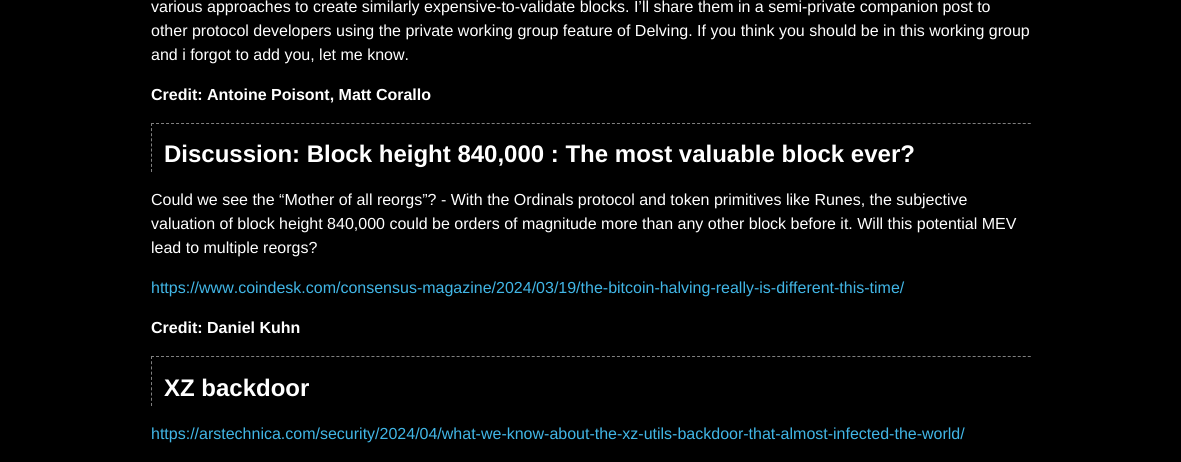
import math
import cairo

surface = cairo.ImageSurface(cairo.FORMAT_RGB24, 1181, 462)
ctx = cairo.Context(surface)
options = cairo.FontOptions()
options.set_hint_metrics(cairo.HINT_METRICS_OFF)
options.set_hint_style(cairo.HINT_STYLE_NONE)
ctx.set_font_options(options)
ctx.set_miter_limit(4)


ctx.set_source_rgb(0, 0, 0)
ctx.paint()
ctx.select_font_face("Liberation Sans")
ctx.set_font_size(16)
ctx.set_source_rgb(1, 1, 1)
ctx.move_to(151, 12)
ctx.show_text("various approaches to create similarly expensive-to-validate blocks. I’ll share them in a semi-private companion post to")
ctx.move_to(151, 36)
ctx.show_text("other protocol developers using the private working group feature of Delving. If you think you should be in this working group")
ctx.move_to(151, 60)
ctx.show_text("and i forgot to add you, let me know.")
ctx.select_font_face("Liberation Sans", cairo.FONT_SLANT_NORMAL, cairo.FONT_WEIGHT_BOLD)
ctx.move_to(151, 100)
ctx.show_text("Credit: Antoine Poisont, Matt Corallo")
ctx.new_path()
ctx.move_to(151, 123.5)
ctx.line_to(1031, 123.5)
ctx.set_source_rgb(0.502, 0.502, 0.502)
ctx.set_line_width(1)
ctx.set_dash([3, 2.01])
ctx.stroke()
ctx.new_path()
ctx.move_to(151.5, 123)
ctx.line_to(151.5, 172)
ctx.set_dash([3, 2.11])
ctx.stroke()
ctx.set_font_size(24)
ctx.set_source_rgb(1, 1, 1)
ctx.move_to(164, 162)
ctx.show_text("Discussion: Block height 840,000 : The most valuable block ever?")
ctx.select_font_face("Liberation Sans")
ctx.set_font_size(16)
ctx.move_to(151, 205)
ctx.show_text("Could we see the “Mother of all reorgs”? - With the Ordinals protocol and token primitives like Runes, the subjective")
ctx.move_to(151, 229)
ctx.show_text("valuation of block height 840,000 could be orders of magnitude more than any other block before it. Will this potential MEV")
ctx.move_to(151, 253)
ctx.show_text("lead to multiple reorgs?")
ctx.set_source_rgb(0.255, 0.714, 0.902)
ctx.move_to(151, 293)
ctx.show_text("https://www.coindesk.com/consensus-magazine/2024/03/19/the-bitcoin-halving-really-is-different-this-time/")
ctx.select_font_face("Liberation Sans", cairo.FONT_SLANT_NORMAL, cairo.FONT_WEIGHT_BOLD)
ctx.set_source_rgb(1, 1, 1)
ctx.move_to(151, 333)
ctx.show_text("Credit: Daniel Kuhn")
ctx.new_path()
ctx.move_to(151, 356.5)
ctx.line_to(1031, 356.5)
ctx.set_source_rgb(0.502, 0.502, 0.502)
ctx.set_dash([3, 2.01])
ctx.stroke()
ctx.new_path()
ctx.move_to(151.5, 356)
ctx.line_to(151.5, 406)
ctx.set_dash([3, 2.22])
ctx.stroke()
ctx.set_font_size(24)
ctx.set_source_rgb(1, 1, 1)
ctx.move_to(164, 396)
ctx.show_text("XZ backdoor")
ctx.select_font_face("Liberation Sans")
ctx.set_font_size(16)
ctx.set_source_rgb(0.255, 0.714, 0.902)
ctx.move_to(151, 439)
ctx.show_text("https://arstechnica.com/security/2024/04/what-we-know-about-the-xz-utils-backdoor-that-almost-infected-the-world/")
surface.write_to_png("page.png")
